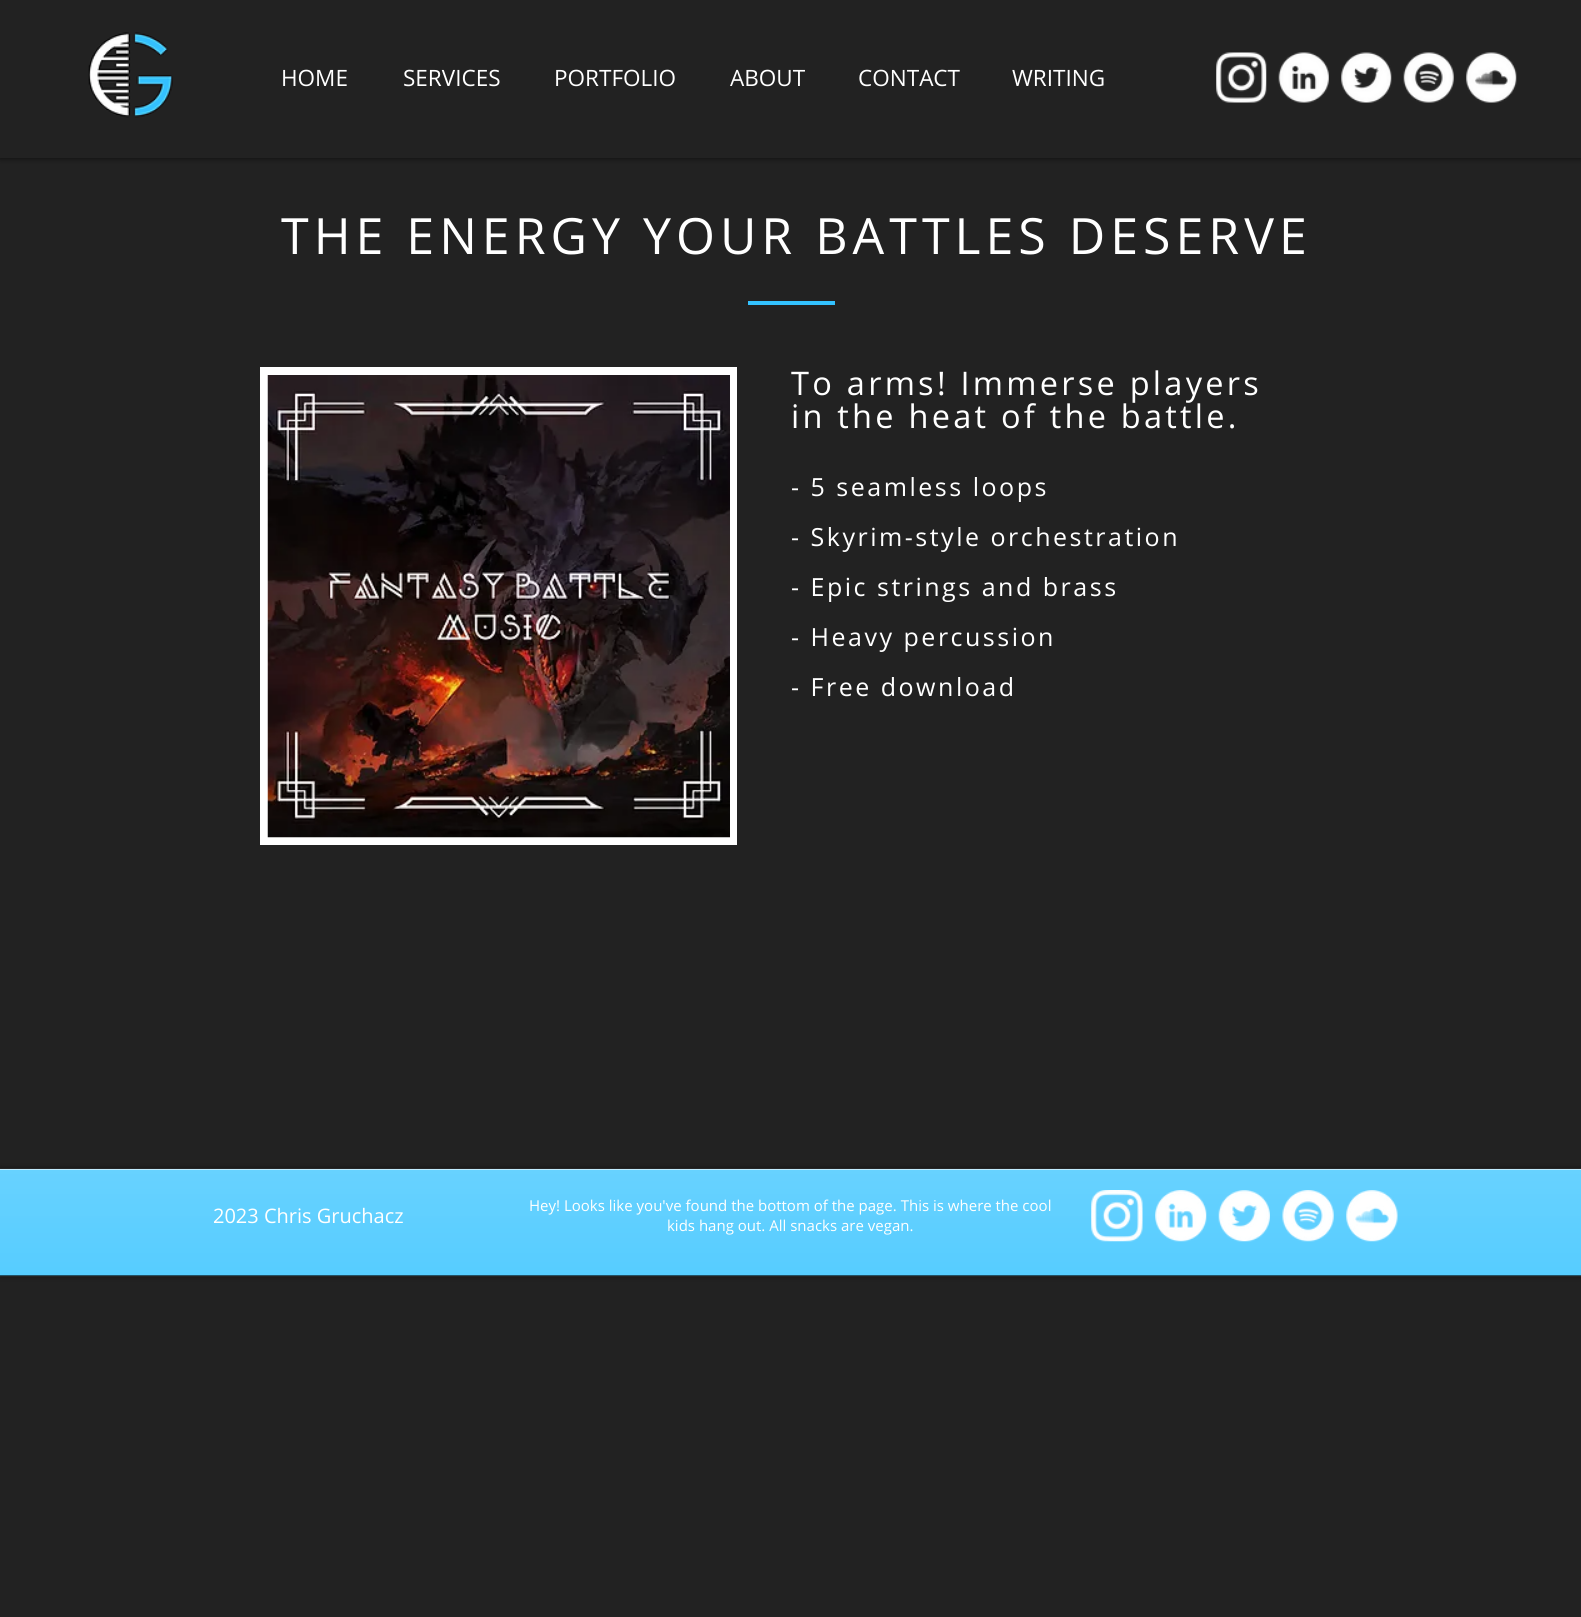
import math
import cairo

surface = cairo.ImageSurface(cairo.FORMAT_RGB24, 1581, 1617)
ctx = cairo.Context(surface)
options = cairo.FontOptions()
options.set_hint_metrics(cairo.HINT_METRICS_OFF)
options.set_hint_style(cairo.HINT_STYLE_NONE)
ctx.set_font_options(options)
ctx.set_miter_limit(4)


def spaced_text(x, y, s, letter, word):
    ctx.move_to(x, y)
    for ch in s:
        ctx.show_text(ch)
        ctx.rel_move_to(letter + word * (ch == ' '), 0)


def round_rect(x, y, w, h, r):
    ctx.new_sub_path()
    for i, (u, v) in enumerate([(x + w - r, y + h - r), (x + r, y + h - r), (x + r, y + r), (x + w - r, y + r)]):
        ctx.arc(u, v, r, i * math.pi / 2, (i + 1) * math.pi / 2)
    ctx.close_path()


def shadow(x, y, w, h, r, blur, alpha):
    ctx.push_group_with_content(cairo.CONTENT_ALPHA)
    ctx.set_operator(cairo.OPERATOR_SOURCE)
    for i in range(15, -16, -2):
        e = blur * i / 6
        if min(w, h) + 2 * e > 0:
            ctx.set_source_rgba(0, 0, 0, alpha * math.erfc((i - 1) / 8.5) / 2)
            round_rect(x - e, y - e, w + 2 * e, h + 2 * e, max(0, min(r + e + blur * .6, min(w, h) / 2 + e)))
            ctx.fill()
    ctx.mask(ctx.pop_group())


def picture(path, x, y, w, h):
    ctx.save()
    ctx.set_source_surface(cairo.ImageSurface.create_from_png(path), x, y)
    ctx.rectangle(x, y, w, h)
    ctx.fill()
    ctx.restore()


ctx.set_source_rgb(0.133, 0.133, 0.133)
ctx.paint()
ctx.set_source_rgb(0, 0, 0)
shadow(0, 0, 1581, 158, 0, 3, 0.7)
ctx.set_source_rgb(0.133, 0.133, 0.133)
ctx.rectangle(0, 0, 1581, 158)
ctx.fill()
picture("img1.png", 88, 32, 85, 86)
ctx.select_font_face("Open Sans")
ctx.set_font_size(22.5)
ctx.set_source_rgb(1, 1, 1)
ctx.move_to(281, 86)
ctx.show_text("HOME")
ctx.move_to(403, 86)
ctx.show_text("SERVICES")
ctx.move_to(554, 86)
ctx.show_text("PORTFOLIO")
ctx.move_to(730, 86)
ctx.show_text("ABOUT")
ctx.move_to(858, 86)
ctx.show_text("CONTACT")
ctx.move_to(1012, 86)
ctx.show_text("WRITING")
picture("img2.png", 1216, 52, 51, 51)
picture("img3.png", 1278, 52, 51, 51)
picture("img4.png", 1341, 52, 51, 51)
picture("img5.png", 1403, 52, 51, 51)
picture("img6.png", 1466, 52, 51, 51)
ctx.set_font_size(50)
spaced_text(281, 254, "THE ENERGY YOUR BATTLES DESERVE", 5, 0)
ctx.set_source_rgb(0.2, 0.761, 1)
ctx.rectangle(748, 301, 87, 4)
ctx.fill()
ctx.set_source_rgb(1, 1, 1)
ctx.rectangle(260, 367, 477, 478)
ctx.fill()
ctx.set_font_size(32.5)
spaced_text(791, 395, "To arms! Immerse players", 3.25, 0)
spaced_text(791, 428, "in the heat of the battle.", 3.25, 0)
picture("img7.png", 267, 375, 463, 463)
ctx.set_font_size(25)
spaced_text(791, 496, "- 5 seamless loops", 2.5, 0)
spaced_text(791, 546, "- Skyrim-style orchestration", 2.5, 0)
spaced_text(791, 596, "- Epic strings and brass", 2.5, 0)
spaced_text(791, 646, "- Heavy percussion", 2.5, 0)
spaced_text(791, 696, "- Free download", 2.5, 0)
ctx.set_source_rgb(0, 0, 0)
shadow(0, 1169, 1581, 107, 0, 3, 0.6)
ctx.set_source_rgb(0.2, 0.761, 1)
ctx.rectangle(0, 1170, 1581, 105)
ctx.fill()
picture("img8.png", 0, 1168, 1581, 109)
ctx.set_source_rgb(0.133, 0.322, 0.4)
ctx.rectangle(0, 1275, 1581, 1)
ctx.fill()
ctx.set_source_rgb(0.761, 0.929, 1)
ctx.rectangle(0, 1169, 1581, 1)
ctx.fill()
ctx.set_font_size(20)
ctx.set_source_rgb(1, 1, 1)
ctx.move_to(213, 1223)
ctx.show_text("2023 Chris Gruchacz")
ctx.set_font_size(15)
ctx.move_to(529, 1211)
ctx.show_text("Hey! Looks like you've found the bottom of the page. This is where the cool")
ctx.move_to(667, 1231)
ctx.show_text("kids hang out. All snacks are vegan.")
picture("img9.png", 1091, 1190, 52, 52)
picture("img10.png", 1155, 1190, 52, 52)
picture("img11.png", 1218, 1190, 52, 52)
picture("img12.png", 1282, 1190, 52, 52)
picture("img13.png", 1346, 1190, 52, 52)
surface.write_to_png("page.png")
